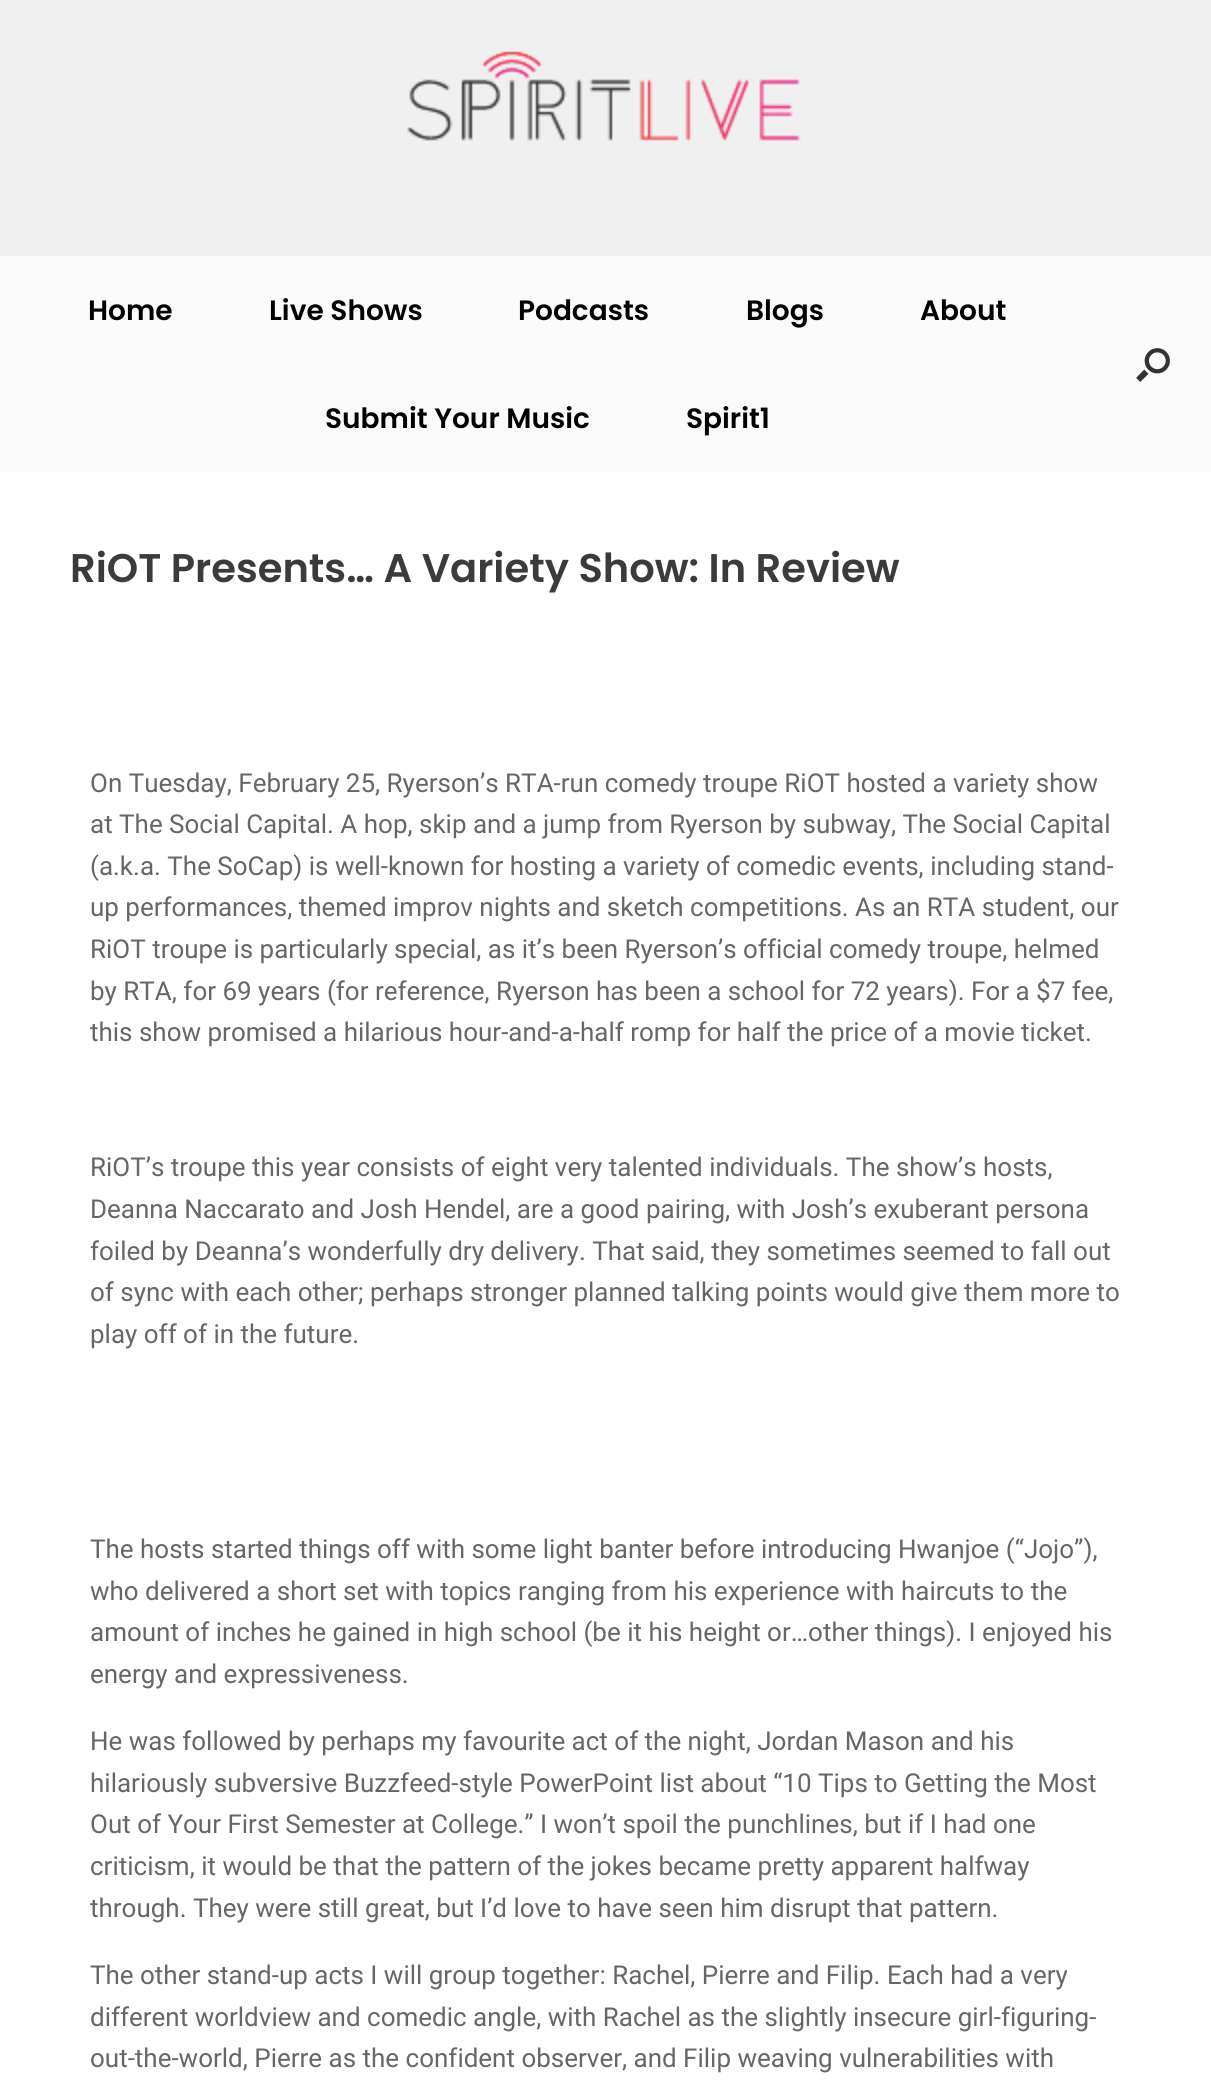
import math
import cairo

surface = cairo.ImageSurface(cairo.FORMAT_RGB24, 1211, 2088)
ctx = cairo.Context(surface)
options = cairo.FontOptions()
options.set_hint_metrics(cairo.HINT_METRICS_OFF)
options.set_hint_style(cairo.HINT_STYLE_NONE)
ctx.set_font_options(options)
ctx.set_miter_limit(4)


def picture(path, x, y, w, h):
    ctx.save()
    ctx.set_source_surface(cairo.ImageSurface.create_from_png(path), x, y)
    ctx.rectangle(x, y, w, h)
    ctx.fill()
    ctx.restore()


ctx.set_source_rgb(0.941, 0.941, 0.941)
ctx.paint()
picture("img1.png", 407, 51, 394, 90)
ctx.set_source_rgb(0.98, 0.98, 0.98)
ctx.rectangle(0, 256, 1211, 216)
ctx.fill()
ctx.select_font_face("Poppins SemiBold")
ctx.set_font_size(28)
ctx.set_source_rgb(0, 0, 0)
ctx.move_to(88, 320)
ctx.show_text("Home")
ctx.move_to(269, 320)
ctx.show_text("Live Shows")
ctx.move_to(518, 320)
ctx.show_text("Podcasts")
ctx.move_to(746, 320)
ctx.show_text("Blogs")
ctx.move_to(920, 320)
ctx.show_text("About")
ctx.move_to(325, 428)
ctx.show_text("Submit Your Music")
ctx.move_to(686, 428)
ctx.show_text("Spirit1")
picture("img2.png", 1136, 348, 34, 34)
ctx.set_source_rgb(1, 1, 1)
ctx.rectangle(0, 472, 1211, 1616)
ctx.fill()
ctx.set_font_size(40)
ctx.set_source_rgb(0.231, 0.231, 0.231)
ctx.move_to(70, 582)
ctx.show_text("RiOT Presents… A Variety Show: In Review")
ctx.select_font_face("Roboto")
ctx.set_font_size(26)
ctx.set_source_rgb(0.4, 0.4, 0.4)
ctx.move_to(90, 792)
ctx.show_text("On Tuesday, February 25, Ryerson’s RTA-run comedy troupe RiOT hosted a variety show")
ctx.move_to(90, 833)
ctx.show_text("at The Social Capital. A hop, skip and a jump from Ryerson by subway, The Social Capital")
ctx.move_to(90, 875)
ctx.show_text("(a.k.a. The SoCap) is well-known for hosting a variety of comedic events, including stand-")
ctx.move_to(90, 916)
ctx.show_text("up performances, themed improv nights and sketch competitions. As an RTA student, our")
ctx.move_to(90, 958)
ctx.show_text("RiOT troupe is particularly special, as it’s been Ryerson’s official comedy troupe, helmed")
ctx.move_to(90, 1000)
ctx.show_text("by RTA, for 69 years (for reference, Ryerson has been a school for 72 years). For a $7 fee,")
ctx.move_to(90, 1041)
ctx.show_text("this show promised a hilarious hour-and-a-half romp for half the price of a movie ticket.")
ctx.move_to(90, 1176)
ctx.show_text("RiOT’s troupe this year consists of eight very talented individuals. The show’s hosts,")
ctx.move_to(90, 1218)
ctx.show_text("Deanna Naccarato and Josh Hendel, are a good pairing, with Josh’s exuberant persona")
ctx.move_to(90, 1260)
ctx.show_text("foiled by Deanna’s wonderfully dry delivery. That said, they sometimes seemed to fall out")
ctx.move_to(90, 1301)
ctx.show_text("of sync with each other; perhaps stronger planned talking points would give them more to")
ctx.move_to(90, 1343)
ctx.show_text("play off of in the future.")
ctx.move_to(90, 1558)
ctx.show_text("The hosts started things off with some light banter before introducing Hwanjoe (“Jojo”),")
ctx.move_to(90, 1600)
ctx.show_text("who delivered a short set with topics ranging from his experience with haircuts to the")
ctx.move_to(90, 1641)
ctx.show_text("amount of inches he gained in high school (be it his height or…other things). I enjoyed his")
ctx.move_to(90, 1683)
ctx.show_text("energy and expressiveness.")
ctx.move_to(90, 1750)
ctx.show_text("He was followed by perhaps my favourite act of the night, Jordan Mason and his")
ctx.move_to(90, 1792)
ctx.show_text("hilariously subversive Buzzfeed-style PowerPoint list about “10 Tips to Getting the Most")
ctx.move_to(90, 1833)
ctx.show_text("Out of Your First Semester at College.” I won’t spoil the punchlines, but if I had one")
ctx.move_to(90, 1875)
ctx.show_text("criticism, it would be that the pattern of the jokes became pretty apparent halfway")
ctx.move_to(90, 1917)
ctx.show_text("through. They were still great, but I’d love to have seen him disrupt that pattern.")
ctx.move_to(90, 1984)
ctx.show_text("The other stand-up acts I will group together: Rachel, Pierre and Filip. Each had a very")
ctx.move_to(90, 2026)
ctx.show_text("different worldview and comedic angle, with Rachel as the slightly insecure girl-figuring-")
ctx.move_to(90, 2067)
ctx.show_text("out-the-world, Pierre as the confident observer, and Filip weaving vulnerabilities with")
surface.write_to_png("page.png")
